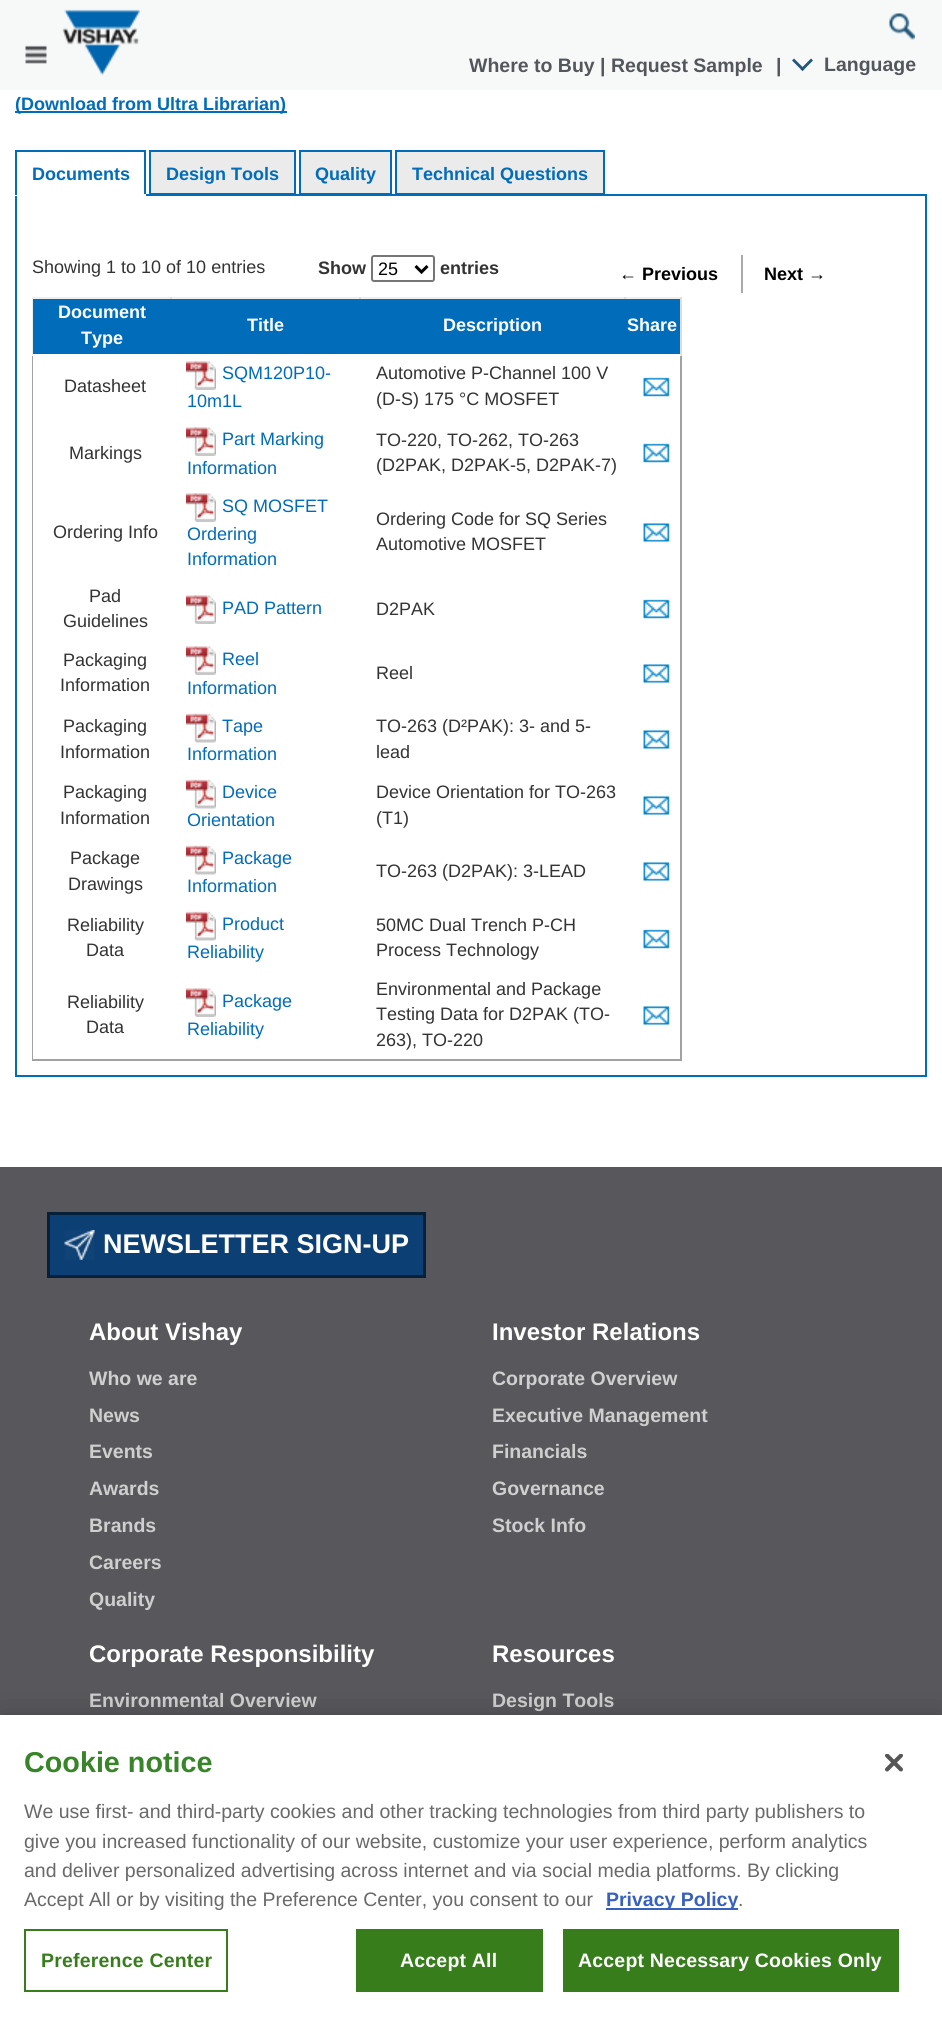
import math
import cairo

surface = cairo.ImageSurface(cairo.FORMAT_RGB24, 942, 2022)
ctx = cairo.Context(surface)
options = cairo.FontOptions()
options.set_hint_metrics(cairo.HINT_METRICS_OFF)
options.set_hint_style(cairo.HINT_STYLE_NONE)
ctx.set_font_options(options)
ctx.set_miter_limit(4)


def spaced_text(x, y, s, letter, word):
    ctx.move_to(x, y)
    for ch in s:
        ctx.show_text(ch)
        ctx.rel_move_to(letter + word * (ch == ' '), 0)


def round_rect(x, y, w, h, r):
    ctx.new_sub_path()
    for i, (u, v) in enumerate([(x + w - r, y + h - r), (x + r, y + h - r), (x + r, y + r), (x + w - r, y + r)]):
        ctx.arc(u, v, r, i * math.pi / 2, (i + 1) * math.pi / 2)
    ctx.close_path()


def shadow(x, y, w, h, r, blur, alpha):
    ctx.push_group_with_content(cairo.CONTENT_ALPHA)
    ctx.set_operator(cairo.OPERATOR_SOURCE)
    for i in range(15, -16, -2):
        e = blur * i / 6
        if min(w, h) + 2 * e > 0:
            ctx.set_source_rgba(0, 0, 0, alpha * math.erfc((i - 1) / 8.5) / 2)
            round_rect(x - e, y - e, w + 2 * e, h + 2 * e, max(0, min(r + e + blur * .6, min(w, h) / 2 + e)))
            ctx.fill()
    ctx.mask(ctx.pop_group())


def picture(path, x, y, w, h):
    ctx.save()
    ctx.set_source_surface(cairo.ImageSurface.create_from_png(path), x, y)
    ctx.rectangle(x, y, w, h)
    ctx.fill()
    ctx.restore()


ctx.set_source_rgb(1, 1, 1)
ctx.paint()
ctx.set_source_rgb(0.965, 0.973, 0.976)
ctx.rectangle(0, 0, 942, 90)
ctx.fill()
picture("img1.png", 62, 9, 78, 67)
picture("img2.png", 889, 13, 26, 27)
picture("img3.png", 25, 45, 22, 19)
ctx.select_font_face("Liberation Sans", cairo.FONT_SLANT_NORMAL, cairo.FONT_WEIGHT_BOLD)
ctx.set_font_size(19.5)
ctx.set_source_rgb(0.325, 0.337, 0.353)
ctx.move_to(469, 72)
ctx.show_text("Where to Buy |")
ctx.move_to(611, 72)
ctx.show_text("Request Sample")
ctx.move_to(776, 72)
ctx.show_text("|")
ctx.set_source_rgb(0.133, 0.337, 0.471)
ctx.new_path()
ctx.move_to(811, 58.5)
ctx.line_to(813, 60.5)
ctx.line_to(802.5, 71)
ctx.line_to(800.5, 69)
ctx.close_path()
ctx.fill()
ctx.new_path()
ctx.move_to(794, 58.5)
ctx.line_to(804.5, 69)
ctx.line_to(802.5, 71)
ctx.line_to(792, 60.5)
ctx.close_path()
ctx.fill()
ctx.set_source_rgb(0.325, 0.337, 0.353)
ctx.move_to(824, 71)
ctx.show_text("Language")
ctx.set_source_rgb(0, 0.424, 0.729)
ctx.rectangle(15, 111, 272, 2)
ctx.fill()
ctx.set_font_size(18)
ctx.move_to(15, 110)
ctx.show_text("(Download from Ultra Librarian)")
ctx.set_source_rgb(0.004, 0.424, 0.729)
ctx.rectangle(15, 150, 131, 2)
ctx.fill()
ctx.rectangle(16, 195, 910, 881)
ctx.stroke()
ctx.rectangle(144, 150, 2, 45)
ctx.fill()
ctx.set_source_rgb(1, 1, 1)
ctx.rectangle(15, 194, 131, 2)
ctx.fill()
ctx.set_source_rgb(0.004, 0.424, 0.729)
ctx.rectangle(15, 150, 2, 45)
ctx.fill()
ctx.set_source_rgb(0, 0.424, 0.729)
ctx.move_to(32, 180)
ctx.show_text("Documents")
ctx.set_source_rgb(0.918, 0.918, 0.918)
ctx.rectangle(150, 151, 145, 43)
ctx.fill_preserve()
ctx.set_source_rgb(0.004, 0.424, 0.729)
ctx.stroke()
ctx.set_source_rgb(0, 0.424, 0.729)
ctx.move_to(166, 180)
ctx.show_text("Design Tools")
ctx.set_source_rgb(0.918, 0.918, 0.918)
ctx.rectangle(300, 151, 91, 43)
ctx.fill_preserve()
ctx.set_source_rgb(0.004, 0.424, 0.729)
ctx.stroke()
ctx.set_source_rgb(0, 0.424, 0.729)
ctx.move_to(315, 180)
ctx.show_text("Quality")
ctx.set_source_rgb(0.918, 0.918, 0.918)
ctx.rectangle(396, 151, 208, 43)
ctx.fill_preserve()
ctx.set_source_rgb(0.004, 0.424, 0.729)
ctx.stroke()
ctx.set_source_rgb(0, 0.424, 0.729)
ctx.move_to(412, 180)
ctx.show_text("Technical Questions")
ctx.select_font_face("Liberation Sans")
ctx.set_source_rgb(0.2, 0.2, 0.2)
ctx.move_to(32, 273)
ctx.show_text("Showing 1 to 10 of 10 entries")
ctx.select_font_face("Liberation Sans", cairo.FONT_SLANT_NORMAL, cairo.FONT_WEIGHT_BOLD)
ctx.move_to(318, 274)
ctx.show_text("Show")
round_rect(372, 256, 62, 25, 2)
ctx.set_source_rgb(0.463, 0.463, 0.463)
ctx.stroke()
ctx.new_path()
ctx.move_to(415.5, 266)
ctx.line_to(421.5, 272)
ctx.line_to(427.5, 266)
ctx.set_source_rgb(0, 0, 0)
ctx.set_line_width(3)
ctx.stroke()
ctx.select_font_face("Liberation Sans")
ctx.move_to(378, 275)
ctx.show_text("25")
ctx.select_font_face("Liberation Sans", cairo.FONT_SLANT_NORMAL, cairo.FONT_WEIGHT_BOLD)
ctx.set_source_rgb(0.2, 0.2, 0.2)
ctx.move_to(440, 274)
ctx.show_text("entries")
ctx.set_source_rgb(0.667, 0.667, 0.667)
ctx.rectangle(741, 255, 2, 38)
ctx.fill()
ctx.set_source_rgb(0, 0, 0)
ctx.move_to(619, 280)
ctx.show_text("← Previous")
ctx.move_to(764, 280)
ctx.show_text("Next →")
ctx.set_source_rgb(0.933, 0.933, 0.933)
ctx.rectangle(32, 297, 649, 2)
ctx.fill()
ctx.rectangle(32, 297, 2, 57)
ctx.fill()
ctx.set_source_rgb(0.867, 0.867, 0.867)
ctx.rectangle(170, 297, 2, 2)
ctx.fill()
ctx.set_source_rgb(0.635, 0.635, 0.635)
ctx.rectangle(680, 354, 2, 707)
ctx.fill()
ctx.rectangle(32, 1059, 649, 2)
ctx.fill()
ctx.rectangle(32, 971, 2, 90)
ctx.fill()
ctx.rectangle(32, 354, 1, 618)
ctx.fill()
ctx.set_source_rgb(0.933, 0.933, 0.933)
ctx.rectangle(32, 354, 1, 2)
ctx.fill()
ctx.set_source_rgb(0, 0.424, 0.729)
ctx.rectangle(33, 299, 647, 55)
ctx.fill()
ctx.set_source_rgb(1, 1, 1)
ctx.move_to(58, 318)
ctx.show_text("Document")
ctx.move_to(81, 344)
ctx.show_text("Type")
ctx.set_source_rgb(0.867, 0.867, 0.867)
ctx.rectangle(359, 297, 2, 2)
ctx.fill()
ctx.set_source_rgb(1, 1, 1)
ctx.move_to(247, 331)
ctx.show_text("Title")
ctx.set_source_rgb(0.867, 0.867, 0.867)
ctx.rectangle(624, 297, 2, 2)
ctx.fill()
ctx.set_source_rgb(1, 1, 1)
ctx.move_to(443, 331)
ctx.show_text("Description")
ctx.set_source_rgb(0.867, 0.867, 0.867)
ctx.rectangle(680, 297, 2, 59)
ctx.fill()
ctx.set_source_rgb(0.933, 0.933, 0.933)
ctx.rectangle(680, 354, 1, 2)
ctx.fill()
ctx.set_source_rgb(1, 1, 1)
ctx.move_to(627, 331)
ctx.show_text("Share")
ctx.select_font_face("Liberation Sans")
ctx.set_source_rgb(0.2, 0.2, 0.2)
ctx.move_to(64, 392)
ctx.show_text("Datasheet")
picture("img4.png", 186, 361, 30, 29)
ctx.set_source_rgb(0, 0.424, 0.729)
ctx.move_to(222, 379)
ctx.show_text("SQM120P10-")
ctx.move_to(187, 407)
ctx.show_text("10m1L")
ctx.set_source_rgb(0.2, 0.2, 0.2)
ctx.move_to(376, 379)
ctx.show_text("Automotive P-Channel 100 V")
ctx.move_to(376, 405)
ctx.show_text("(D-S) 175 °C MOSFET")
picture("img5.png", 643, 377, 27, 20)
ctx.move_to(69, 459)
ctx.show_text("Markings")
picture("img4.png", 186, 427, 30, 29)
ctx.set_source_rgb(0, 0.424, 0.729)
ctx.move_to(222, 445)
ctx.show_text("Part Marking")
ctx.move_to(187, 474)
ctx.show_text("Information")
ctx.set_source_rgb(0.2, 0.2, 0.2)
ctx.move_to(376, 446)
ctx.show_text("TO-220, TO-262, TO-263")
ctx.move_to(376, 471)
ctx.show_text("(D2PAK, D2PAK-5, D2PAK-7)")
picture("img5.png", 643, 443, 27, 20)
ctx.move_to(53, 538)
ctx.show_text("Ordering Info")
picture("img4.png", 186, 493, 30, 29)
ctx.set_source_rgb(0, 0.424, 0.729)
ctx.move_to(222, 512)
ctx.show_text("SQ MOSFET")
ctx.move_to(187, 540)
ctx.show_text("Ordering")
ctx.move_to(187, 565)
ctx.show_text("Information")
ctx.set_source_rgb(0.2, 0.2, 0.2)
ctx.move_to(376, 525)
ctx.show_text("Ordering Code for SQ Series")
ctx.move_to(376, 550)
ctx.show_text("Automotive MOSFET")
picture("img6.png", 643, 523, 27, 19)
ctx.move_to(89, 602)
ctx.show_text("Pad")
ctx.move_to(63, 627)
ctx.show_text("Guidelines")
picture("img4.png", 186, 595, 30, 29)
ctx.set_source_rgb(0, 0.424, 0.729)
ctx.move_to(222, 614)
ctx.show_text("PAD Pattern")
ctx.set_source_rgb(0.2, 0.2, 0.2)
ctx.move_to(376, 615)
ctx.show_text("D2PAK")
picture("img5.png", 643, 599, 27, 20)
ctx.move_to(63, 666)
ctx.show_text("Packaging")
ctx.move_to(60, 691)
ctx.show_text("Information")
picture("img4.png", 186, 646, 30, 29)
ctx.set_source_rgb(0, 0.424, 0.729)
ctx.move_to(222, 665)
ctx.show_text("Reel")
ctx.move_to(187, 694)
ctx.show_text("Information")
ctx.set_source_rgb(0.2, 0.2, 0.2)
ctx.move_to(376, 679)
ctx.show_text("Reel")
picture("img6.png", 643, 664, 27, 19)
ctx.move_to(63, 732)
ctx.show_text("Packaging")
ctx.move_to(60, 758)
ctx.show_text("Information")
picture("img7.png", 186, 713, 30, 30)
ctx.set_source_rgb(0, 0.424, 0.729)
ctx.move_to(222, 732)
ctx.show_text("Tape")
ctx.move_to(187, 760)
ctx.show_text("Information")
ctx.set_source_rgb(0.2, 0.2, 0.2)
ctx.move_to(376, 732)
ctx.show_text("TO-263 (D²PAK): 3- and 5-")
ctx.move_to(376, 758)
ctx.show_text("lead")
picture("img6.png", 643, 730, 27, 19)
ctx.move_to(63, 798)
ctx.show_text("Packaging")
ctx.move_to(60, 824)
ctx.show_text("Information")
picture("img7.png", 186, 779, 30, 30)
ctx.set_source_rgb(0, 0.424, 0.729)
ctx.move_to(222, 798)
ctx.show_text("Device")
ctx.move_to(187, 826)
ctx.show_text("Orientation")
ctx.set_source_rgb(0.2, 0.2, 0.2)
ctx.move_to(376, 798)
ctx.show_text("Device Orientation for TO-263")
ctx.move_to(376, 824)
ctx.show_text("(T1)")
picture("img6.png", 643, 796, 27, 19)
ctx.move_to(70, 864)
ctx.show_text("Package")
ctx.move_to(68, 890)
ctx.show_text("Drawings")
picture("img7.png", 186, 845, 30, 30)
ctx.set_source_rgb(0, 0.424, 0.729)
ctx.move_to(222, 864)
ctx.show_text("Package")
ctx.move_to(187, 892)
ctx.show_text("Information")
ctx.set_source_rgb(0.2, 0.2, 0.2)
ctx.move_to(376, 877)
ctx.show_text("TO-263 (D2PAK): 3-LEAD")
picture("img6.png", 643, 862, 27, 19)
ctx.set_source_rgb(1, 1, 1)
ctx.rectangle(33, 971, 1, 88)
ctx.fill()
ctx.set_source_rgb(0.2, 0.2, 0.2)
ctx.move_to(67, 931)
ctx.show_text("Reliability")
ctx.move_to(86, 956)
ctx.show_text("Data")
picture("img7.png", 186, 911, 30, 30)
ctx.set_source_rgb(0, 0.424, 0.729)
ctx.move_to(222, 930)
ctx.show_text("Product")
ctx.move_to(187, 958)
ctx.show_text("Reliability")
ctx.set_source_rgb(0.2, 0.2, 0.2)
ctx.move_to(376, 931)
ctx.show_text("50MC Dual Trench P-CH")
ctx.move_to(376, 956)
ctx.show_text("Process Technology")
picture("img5.png", 643, 929, 27, 20)
picture("img6.png", 643, 1006, 27, 19)
ctx.move_to(67, 1008)
ctx.show_text("Reliability")
ctx.move_to(86, 1033)
ctx.show_text("Data")
picture("img4.png", 186, 988, 30, 29)
ctx.set_source_rgb(0, 0.424, 0.729)
ctx.move_to(222, 1007)
ctx.show_text("Package")
ctx.move_to(187, 1035)
ctx.show_text("Reliability")
ctx.set_source_rgb(0.2, 0.2, 0.2)
ctx.move_to(376, 995)
ctx.show_text("Environmental and Package")
ctx.move_to(376, 1020)
ctx.show_text("Testing Data for D2PAK (TO-")
ctx.move_to(376, 1046)
ctx.show_text("263), TO-220")
ctx.set_source_rgb(0.341, 0.341, 0.361)
ctx.rectangle(0, 1167, 942, 548)
ctx.fill()
ctx.set_source_rgb(0.047, 0.251, 0.455)
ctx.rectangle(48.5, 1213.5, 376, 63)
ctx.fill_preserve()
ctx.set_source_rgb(0.024, 0.125, 0.227)
ctx.stroke()
picture("img8.png", 64, 1230, 31, 30)
ctx.select_font_face("Liberation Sans", cairo.FONT_SLANT_NORMAL, cairo.FONT_WEIGHT_BOLD)
ctx.set_font_size(27)
ctx.set_source_rgb(1, 1, 1)
ctx.move_to(103, 1253)
ctx.show_text("NEWSLETTER SIGN-UP")
ctx.set_font_size(24)
ctx.move_to(89, 1340)
ctx.show_text("About Vishay")
ctx.set_font_size(19.5)
ctx.set_source_rgb(0.812, 0.812, 0.812)
ctx.move_to(89, 1385)
ctx.show_text("Who we are")
ctx.move_to(89, 1422)
ctx.show_text("News")
ctx.move_to(89, 1458)
ctx.show_text("Events")
ctx.move_to(89, 1495)
ctx.show_text("Awards")
ctx.move_to(89, 1532)
ctx.show_text("Brands")
ctx.move_to(89, 1569)
ctx.show_text("Careers")
ctx.move_to(89, 1606)
ctx.show_text("Quality")
ctx.set_font_size(24)
ctx.set_source_rgb(1, 1, 1)
ctx.move_to(492, 1340)
ctx.show_text("Investor Relations")
ctx.set_font_size(19.5)
ctx.set_source_rgb(0.812, 0.812, 0.812)
ctx.move_to(492, 1385)
ctx.show_text("Corporate Overview")
ctx.move_to(492, 1422)
ctx.show_text("Executive Management")
ctx.move_to(492, 1458)
ctx.show_text("Financials")
ctx.move_to(492, 1495)
ctx.show_text("Governance")
ctx.move_to(492, 1532)
ctx.show_text("Stock Info")
ctx.set_font_size(24)
ctx.set_source_rgb(1, 1, 1)
ctx.move_to(89, 1662)
ctx.show_text("Corporate Responsibility")
ctx.set_font_size(19.5)
ctx.set_source_rgb(0.812, 0.812, 0.812)
ctx.move_to(89, 1707)
ctx.show_text("Environmental Overview")
ctx.set_font_size(24)
ctx.set_source_rgb(1, 1, 1)
ctx.move_to(492, 1662)
ctx.show_text("Resources")
ctx.set_font_size(19.5)
ctx.set_source_rgb(0.812, 0.812, 0.812)
ctx.move_to(492, 1707)
ctx.show_text("Design Tools")
ctx.set_source_rgb(0, 0, 0)
shadow(0, 1715, 942, 307, 0, 13.5, 0.2)
ctx.set_source_rgb(1, 1, 1)
ctx.rectangle(0, 1715, 942, 307)
ctx.fill()
ctx.set_font_size(28.75)
ctx.set_source_rgb(0.216, 0.522, 0.157)
ctx.move_to(24, 1772)
ctx.show_text("Cookie notice")
ctx.select_font_face("Liberation Sans")
ctx.set_font_size(19.5)
ctx.set_source_rgb(0.412, 0.412, 0.412)
ctx.move_to(24, 1818)
ctx.show_text("We use first- and third-party cookies and other tracking technologies from third party publishers to")
ctx.move_to(24, 1848)
ctx.show_text("give you increased functionality of our website, customize your user experience, perform analytics")
ctx.move_to(24, 1877)
ctx.show_text("and deliver personalized advertising across internet and via social media platforms. By clicking")
ctx.move_to(24, 1906)
ctx.show_text("Accept All or by visiting the Preference Center, you consent to our")
ctx.set_source_rgb(0.22, 0.376, 0.745)
ctx.rectangle(606, 1908, 132, 2)
ctx.fill()
ctx.select_font_face("Liberation Sans", cairo.FONT_SLANT_NORMAL, cairo.FONT_WEIGHT_BOLD)
ctx.move_to(606, 1906)
ctx.show_text("Privacy Policy")
ctx.select_font_face("Liberation Sans")
ctx.set_source_rgb(0.412, 0.412, 0.412)
ctx.move_to(738, 1906)
ctx.show_text(".")
ctx.rectangle(25, 1930, 202, 61)
ctx.set_source_rgb(0.22, 0.49, 0.11)
ctx.set_line_width(2)
ctx.stroke()
ctx.select_font_face("Liberation Sans", cairo.FONT_SLANT_NORMAL, cairo.FONT_WEIGHT_BOLD)
spaced_text(41, 1967, "Preference Center", 0.2, 0)
ctx.rectangle(356, 1929, 187, 63)
ctx.fill()
ctx.set_source_rgb(1, 1, 1)
spaced_text(400, 1967, "Accept All", 0.2, 0)
ctx.set_source_rgb(0.22, 0.49, 0.11)
ctx.rectangle(563, 1929, 336, 63)
ctx.fill()
ctx.set_source_rgb(1, 1, 1)
spaced_text(578, 1967, "Accept Necessary Cookies Only", 0.2, 0)
picture("img9.png", 885, 1754, 18, 18)
surface.write_to_png("page.png")
